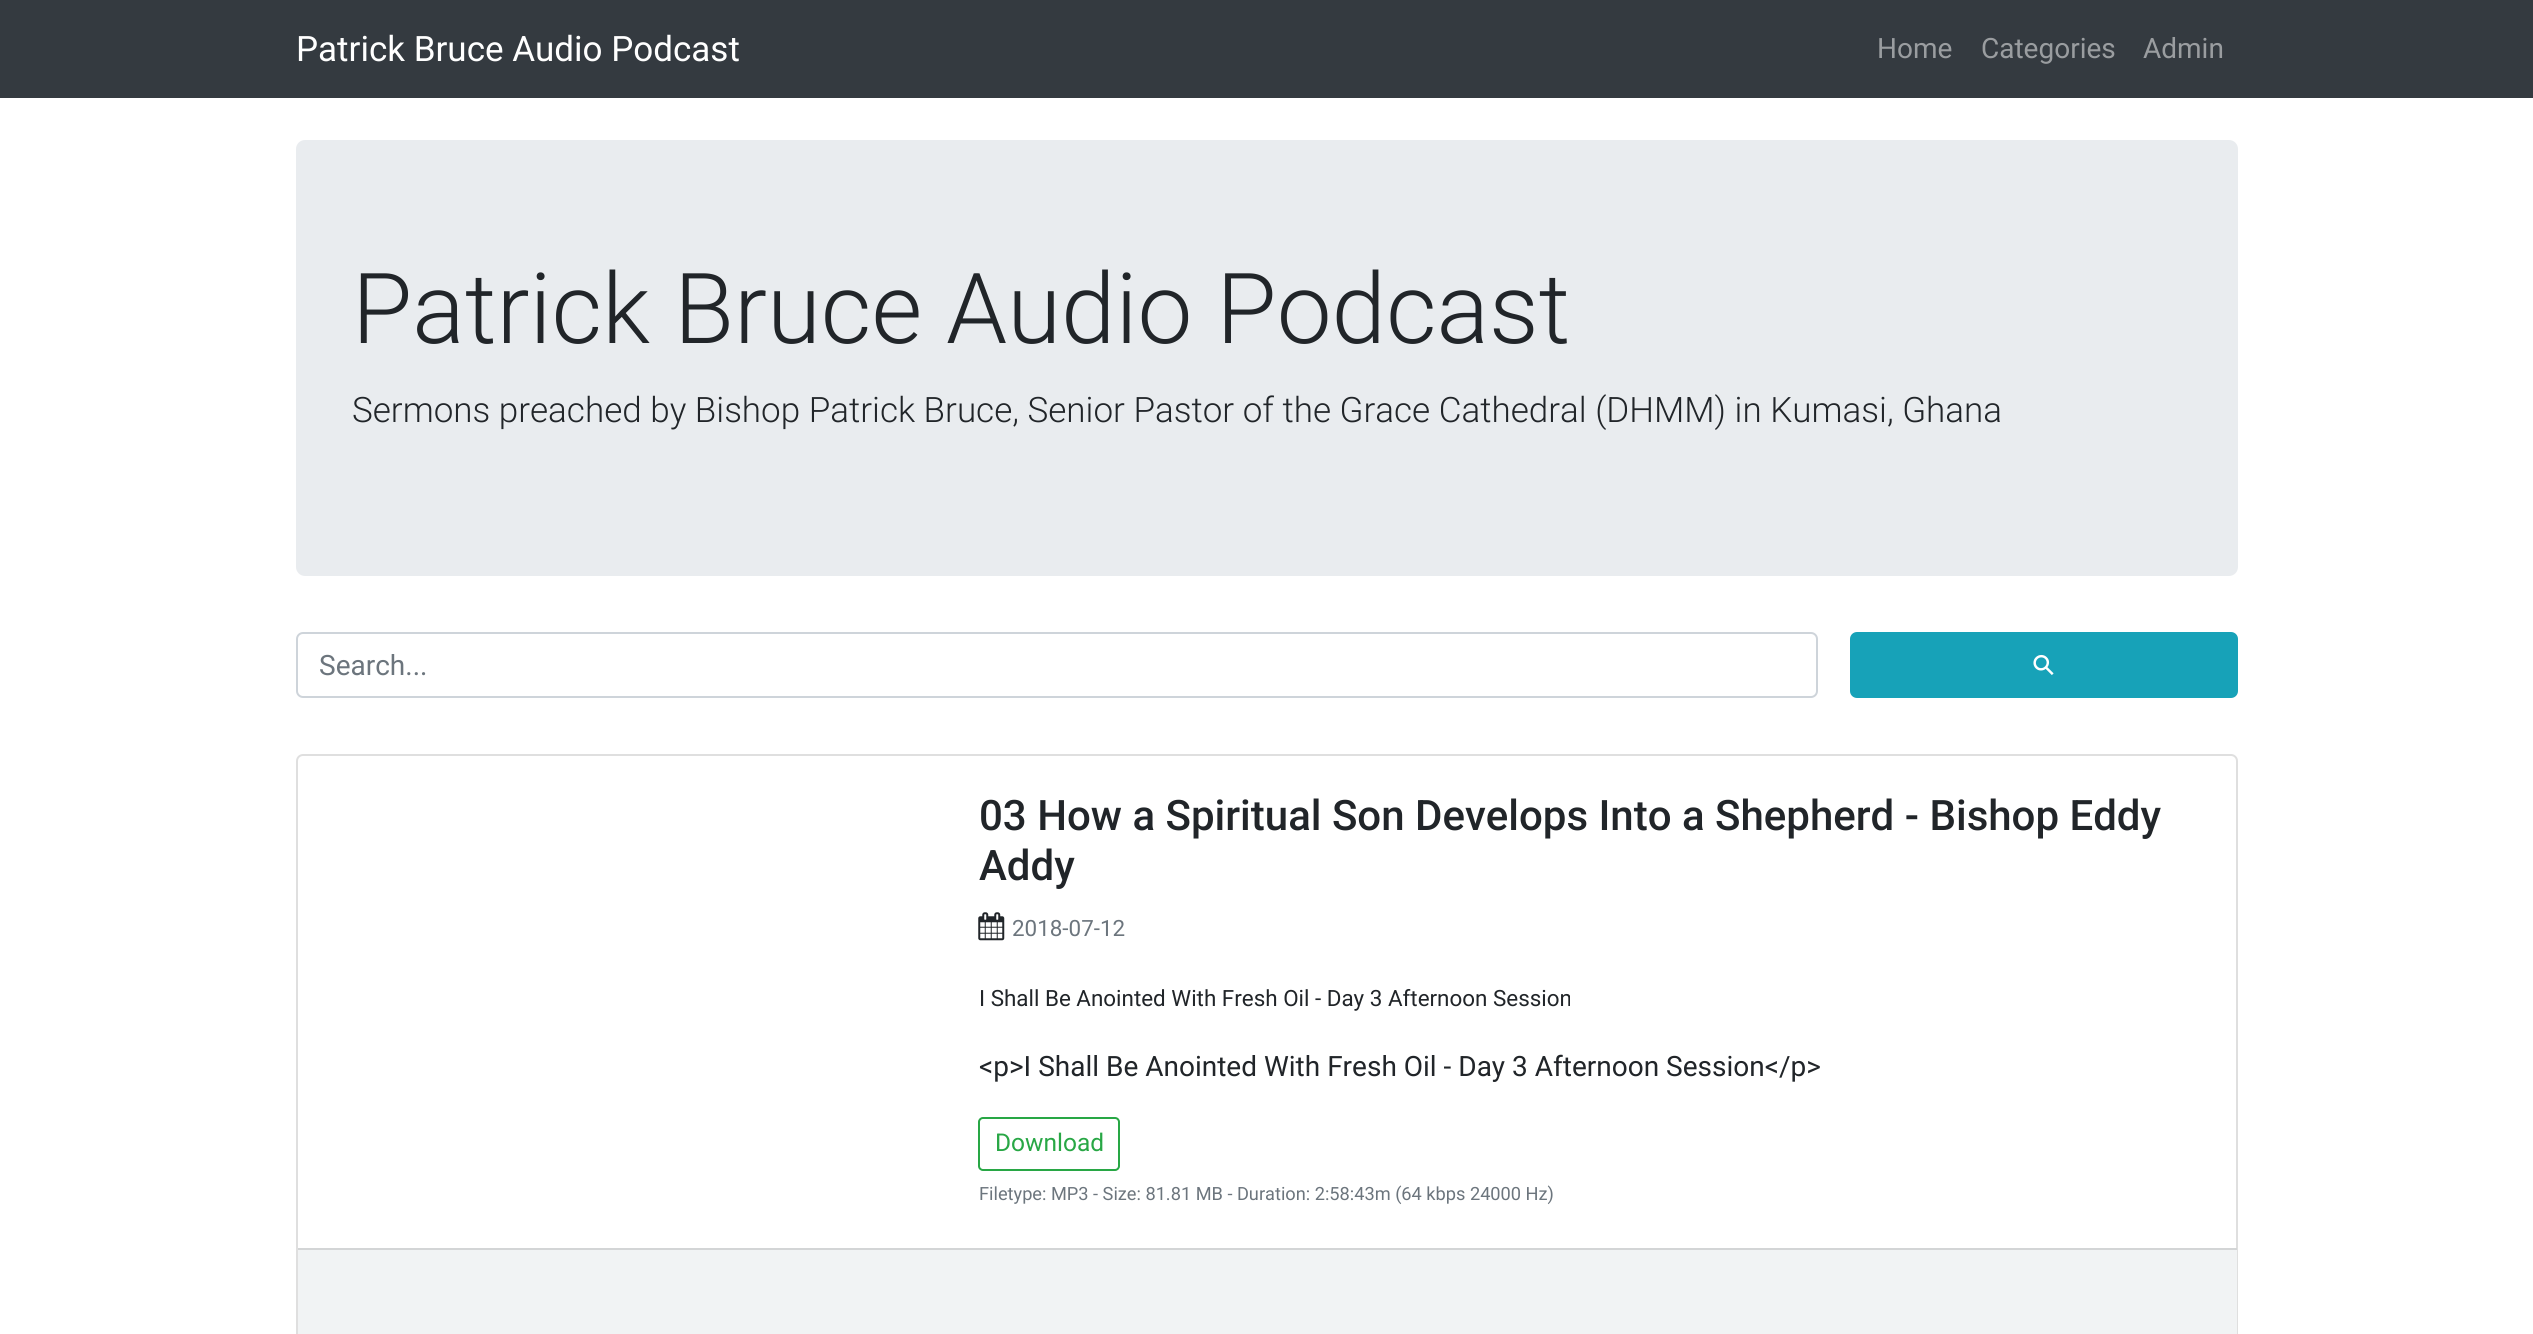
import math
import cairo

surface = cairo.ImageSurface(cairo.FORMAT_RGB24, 2533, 1334)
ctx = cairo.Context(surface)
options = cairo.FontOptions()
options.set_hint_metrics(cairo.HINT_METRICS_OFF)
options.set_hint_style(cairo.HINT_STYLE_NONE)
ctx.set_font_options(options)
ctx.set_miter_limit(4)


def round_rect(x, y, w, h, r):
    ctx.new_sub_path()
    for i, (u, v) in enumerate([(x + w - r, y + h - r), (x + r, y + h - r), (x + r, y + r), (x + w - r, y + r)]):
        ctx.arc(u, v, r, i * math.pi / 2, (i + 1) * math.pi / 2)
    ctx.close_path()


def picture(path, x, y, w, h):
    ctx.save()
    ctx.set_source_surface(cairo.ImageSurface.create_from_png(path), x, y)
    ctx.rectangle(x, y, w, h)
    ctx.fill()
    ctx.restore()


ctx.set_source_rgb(1, 1, 1)
ctx.paint()
ctx.set_source_rgb(0.204, 0.227, 0.251)
ctx.rectangle(0, 0, 2533, 98)
ctx.fill()
ctx.select_font_face("Roboto")
ctx.set_font_size(35)
ctx.set_source_rgb(1, 1, 1)
ctx.move_to(296, 61)
ctx.show_text("Patrick Bruce Audio Podcast")
ctx.set_font_size(28)
ctx.set_source_rgb(0.604, 0.616, 0.627)
ctx.move_to(1877, 58)
ctx.show_text("Home")
ctx.move_to(1981, 58)
ctx.show_text("Categories")
ctx.move_to(2143, 58)
ctx.show_text("Admin")
ctx.set_source_rgb(0.914, 0.925, 0.937)
round_rect(296, 140, 1942, 436, 9)
ctx.fill()
ctx.select_font_face("Roboto Light")
ctx.set_font_size(98)
ctx.set_source_rgb(0.129, 0.145, 0.161)
ctx.move_to(352, 343)
ctx.show_text("Patrick Bruce Audio Podcast")
ctx.set_font_size(35)
ctx.move_to(352, 422)
ctx.show_text("Sermons preached by Bishop Patrick Bruce, Senior Pastor of the Grace Cathedral (DHMM) in Kumasi, Ghana")
round_rect(297, 633, 1520, 64, 6)
ctx.set_source_rgb(0.808, 0.831, 0.855)
ctx.stroke()
ctx.select_font_face("Roboto")
ctx.set_font_size(28)
ctx.set_source_rgb(0.424, 0.459, 0.49)
ctx.move_to(319, 675)
ctx.show_text("Search...")
ctx.set_source_rgb(0.09, 0.635, 0.722)
round_rect(1851, 633, 386, 64, 6)
ctx.fill_preserve()
ctx.stroke()
ctx.select_font_face("DejaVu Sans")
ctx.set_source_rgb(1, 1, 1)
ctx.save()
ctx.translate(2043, 679)
ctx.rotate(-45 * math.pi / 180)
ctx.move_to(0, 0)
ctx.show_text("⚲")
ctx.restore()
round_rect(297, 755, 1940, 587, 6)
ctx.set_source_rgb(0.875, 0.875, 0.875)
ctx.stroke()
ctx.select_font_face("Roboto Medium")
ctx.set_font_size(42)
ctx.set_source_rgb(0.129, 0.145, 0.161)
ctx.move_to(979, 830)
ctx.show_text("03 How a Spiritual Son Develops Into a Shepherd - Bishop Eddy")
ctx.move_to(979, 880)
ctx.show_text("Addy")
picture("img1.png", 978, 912, 27, 29)
ctx.select_font_face("Roboto")
ctx.set_font_size(22.4)
ctx.set_source_rgb(0.424, 0.459, 0.49)
ctx.move_to(1012, 936)
ctx.show_text("2018-07-12")
ctx.set_source_rgb(0.129, 0.145, 0.161)
ctx.move_to(979, 1006)
ctx.show_text("I Shall Be Anointed With Fresh Oil - Day 3 Afternoon Session")
ctx.set_font_size(28)
ctx.move_to(979, 1076)
ctx.show_text("<p>I Shall Be Anointed With Fresh Oil - Day 3 Afternoon Session</p>")
round_rect(979, 1118, 140, 52, 4)
ctx.set_source_rgb(0.157, 0.655, 0.271)
ctx.stroke()
ctx.set_font_size(24.5)
ctx.move_to(995, 1151)
ctx.show_text("Download")
ctx.set_font_size(18.2)
ctx.set_source_rgb(0.424, 0.459, 0.49)
ctx.move_to(979, 1200)
ctx.show_text("Filetype: MP3 - Size: 81.81 MB - Duration: 2:58:43m (64 kbps 24000 Hz)")
ctx.set_source_rgb(0.945, 0.953, 0.957)
ctx.rectangle(298, 1250, 1939, 84)
ctx.fill()
ctx.set_source_rgb(0.827, 0.835, 0.839)
ctx.rectangle(298, 1248, 1939, 2)
ctx.fill()
surface.write_to_png("page.png")
